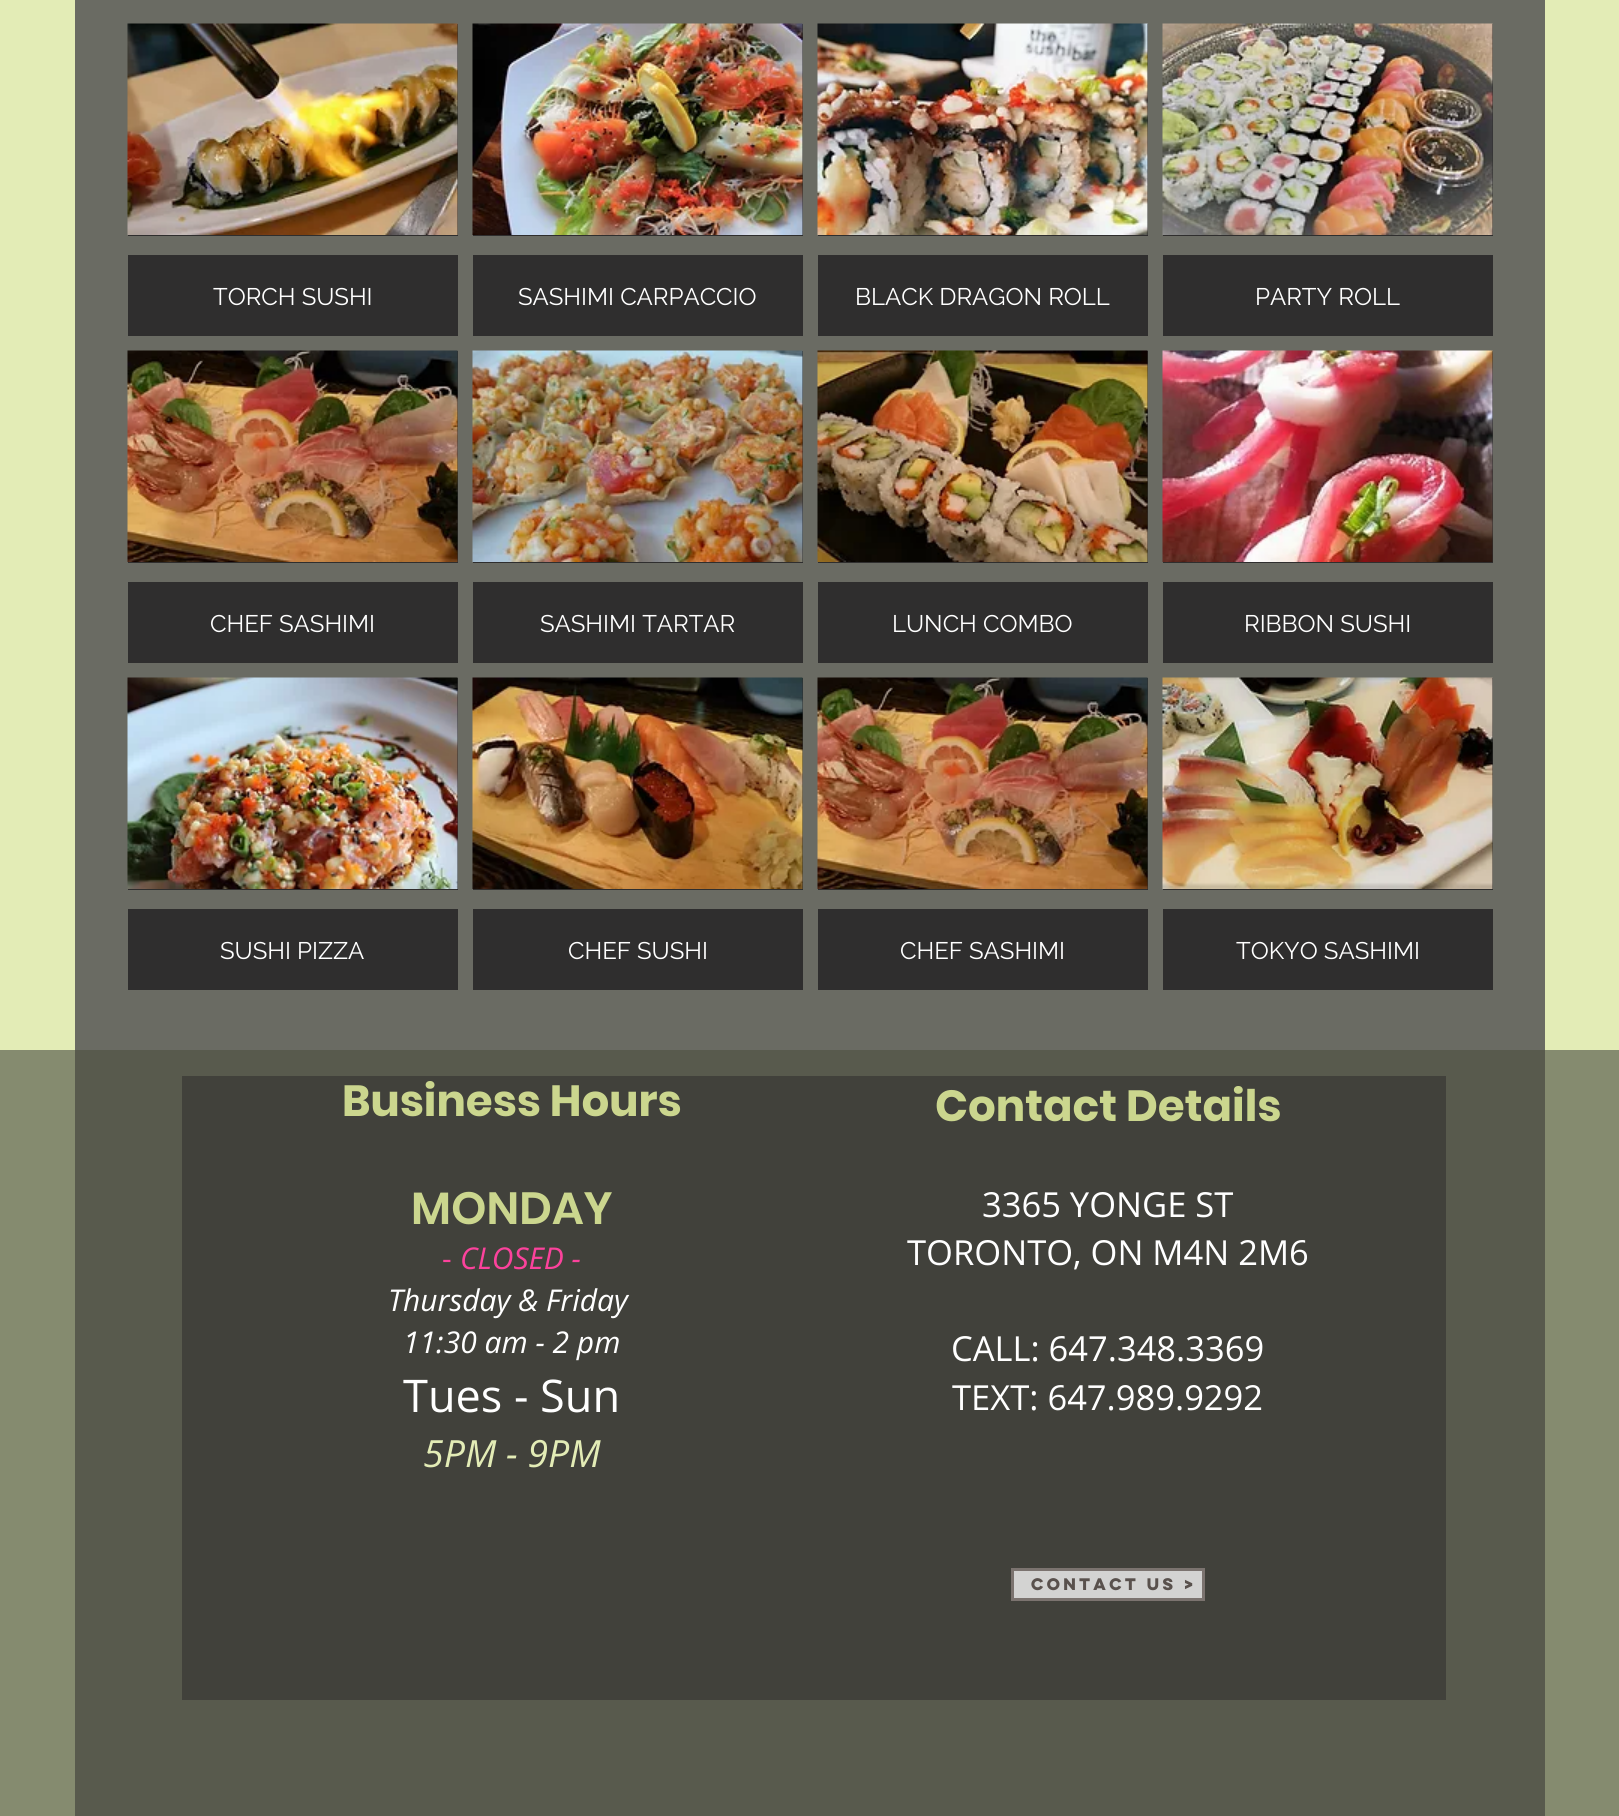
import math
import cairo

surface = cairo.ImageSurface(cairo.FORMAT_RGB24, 1619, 1816)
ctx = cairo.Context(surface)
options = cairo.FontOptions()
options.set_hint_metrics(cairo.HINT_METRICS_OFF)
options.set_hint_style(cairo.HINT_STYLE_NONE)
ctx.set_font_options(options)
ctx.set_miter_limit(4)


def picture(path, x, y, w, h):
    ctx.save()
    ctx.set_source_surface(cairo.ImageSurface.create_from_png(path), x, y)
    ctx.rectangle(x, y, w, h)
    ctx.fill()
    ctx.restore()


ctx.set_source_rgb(0.89, 0.922, 0.714)
ctx.paint()
ctx.set_source_rgb(0.416, 0.42, 0.388)
ctx.rectangle(75, 0, 1470, 1050)
ctx.fill()
ctx.set_source_rgb(0.184, 0.18, 0.18)
ctx.rectangle(128, 24, 330, 212)
ctx.fill()
picture("img1.png", 127, 23, 331, 212)
ctx.rectangle(128, 255, 330, 81)
ctx.fill()
ctx.select_font_face("Raleway")
ctx.set_font_size(24)
ctx.set_source_rgb(1, 1, 1)
ctx.move_to(213, 305)
ctx.show_text("TORCH SUSHI")
ctx.set_source_rgb(0.184, 0.18, 0.18)
ctx.rectangle(473, 24, 330, 212)
ctx.fill()
picture("img2.png", 472, 23, 331, 212)
ctx.rectangle(473, 255, 330, 81)
ctx.fill()
ctx.set_source_rgb(1, 1, 1)
ctx.move_to(518, 305)
ctx.show_text("SASHIMI CARPACCIO")
ctx.set_source_rgb(0.184, 0.18, 0.18)
ctx.rectangle(818, 24, 330, 212)
ctx.fill()
picture("img3.png", 817, 23, 331, 212)
ctx.rectangle(818, 255, 330, 81)
ctx.fill()
ctx.set_source_rgb(1, 1, 1)
ctx.move_to(855, 305)
ctx.show_text("BLACK DRAGON ROLL")
ctx.set_source_rgb(0.184, 0.18, 0.18)
ctx.rectangle(1163, 24, 330, 212)
ctx.fill()
picture("img4.png", 1162, 23, 331, 212)
ctx.rectangle(1163, 255, 330, 81)
ctx.fill()
ctx.set_source_rgb(1, 1, 1)
ctx.move_to(1255, 305)
ctx.show_text("PARTY ROLL")
ctx.set_source_rgb(0.184, 0.18, 0.18)
ctx.rectangle(128, 351, 330, 212)
ctx.fill()
picture("img5.png", 127, 350, 331, 212)
ctx.rectangle(128, 582, 330, 81)
ctx.fill()
ctx.set_source_rgb(1, 1, 1)
ctx.move_to(210, 632)
ctx.show_text("CHEF SASHIMI")
ctx.set_source_rgb(0.184, 0.18, 0.18)
ctx.rectangle(473, 351, 330, 212)
ctx.fill()
picture("img6.png", 472, 350, 331, 212)
ctx.rectangle(473, 582, 330, 81)
ctx.fill()
ctx.set_source_rgb(1, 1, 1)
ctx.move_to(540, 632)
ctx.show_text("SASHIMI TARTAR")
ctx.set_source_rgb(0.184, 0.18, 0.18)
ctx.rectangle(818, 351, 330, 212)
ctx.fill()
picture("img7.png", 817, 350, 331, 212)
ctx.rectangle(818, 582, 330, 81)
ctx.fill()
ctx.set_source_rgb(1, 1, 1)
ctx.move_to(892, 632)
ctx.show_text("LUNCH COMBO")
ctx.set_source_rgb(0.184, 0.18, 0.18)
ctx.rectangle(1163, 351, 330, 212)
ctx.fill()
picture("img8.png", 1162, 350, 331, 212)
ctx.rectangle(1163, 582, 330, 81)
ctx.fill()
ctx.set_source_rgb(1, 1, 1)
ctx.move_to(1244, 632)
ctx.show_text("RIBBON SUSHI")
ctx.set_source_rgb(0.184, 0.18, 0.18)
ctx.rectangle(128, 678, 330, 212)
ctx.fill()
picture("img9.png", 127, 677, 331, 212)
ctx.rectangle(128, 909, 330, 81)
ctx.fill()
ctx.set_source_rgb(1, 1, 1)
ctx.move_to(220, 959)
ctx.show_text("SUSHI PIZZA")
ctx.set_source_rgb(0.184, 0.18, 0.18)
ctx.rectangle(473, 678, 330, 212)
ctx.fill()
picture("img10.png", 472, 677, 331, 212)
ctx.rectangle(473, 909, 330, 81)
ctx.fill()
ctx.set_source_rgb(1, 1, 1)
ctx.move_to(568, 959)
ctx.show_text("CHEF SUSHI")
ctx.set_source_rgb(0.184, 0.18, 0.18)
ctx.rectangle(818, 678, 330, 212)
ctx.fill()
picture("img5.png", 817, 677, 331, 212)
ctx.rectangle(818, 909, 330, 81)
ctx.fill()
ctx.set_source_rgb(1, 1, 1)
ctx.move_to(900, 959)
ctx.show_text("CHEF SASHIMI")
ctx.set_source_rgb(0.184, 0.18, 0.18)
ctx.rectangle(1163, 678, 330, 212)
ctx.fill()
picture("img11.png", 1162, 677, 331, 212)
ctx.rectangle(1163, 909, 330, 81)
ctx.fill()
ctx.set_source_rgb(1, 1, 1)
ctx.move_to(1236, 959)
ctx.show_text("TOKYO SASHIMI")
ctx.set_source_rgb(0.522, 0.545, 0.435)
ctx.rectangle(0, 1050, 1619, 766)
ctx.fill()
ctx.set_source_rgb(0.345, 0.353, 0.302)
ctx.rectangle(75, 1050, 1470, 766)
ctx.fill()
ctx.set_source_rgb(0.255, 0.255, 0.231)
ctx.rectangle(182, 1076, 1264, 624)
ctx.fill()
ctx.select_font_face("Poppins", cairo.FONT_SLANT_NORMAL, cairo.FONT_WEIGHT_BOLD)
ctx.set_font_size(43.5)
ctx.set_source_rgb(0.796, 0.839, 0.557)
ctx.move_to(342, 1116)
ctx.show_text("Business Hours")
ctx.select_font_face("Poppins SemiBold")
ctx.set_font_size(45)
ctx.move_to(411, 1224)
ctx.show_text("MONDAY")
ctx.select_font_face("Open Sans")
ctx.set_font_size(30)
ctx.set_source_rgb(0.988, 0.259, 0.612)
ctx.move_to(442, 1269)
ctx.show_text("-")
ctx.select_font_face("Open Sans", cairo.FONT_SLANT_ITALIC)
ctx.move_to(460, 1269)
ctx.show_text("CLOSED -")
ctx.set_source_rgb(1, 1, 1)
ctx.move_to(388, 1311)
ctx.show_text("Thursday & Friday")
ctx.move_to(403, 1353)
ctx.show_text("11:30 am - 2 pm")
ctx.select_font_face("Open Sans")
ctx.set_font_size(45)
ctx.move_to(403, 1412)
ctx.show_text("Tues - Sun")
ctx.select_font_face("Open Sans", cairo.FONT_SLANT_ITALIC)
ctx.set_font_size(37.5)
ctx.set_source_rgb(0.89, 0.922, 0.714)
ctx.move_to(423, 1467)
ctx.show_text("5PM - 9PM")
ctx.select_font_face("Poppins", cairo.FONT_SLANT_NORMAL, cairo.FONT_WEIGHT_BOLD)
ctx.set_font_size(43.5)
ctx.set_source_rgb(0.796, 0.839, 0.557)
ctx.move_to(935, 1121)
ctx.show_text("Contact Details")
ctx.select_font_face("Open Sans")
ctx.set_font_size(34.5)
ctx.set_source_rgb(1, 1, 1)
ctx.move_to(982, 1217)
ctx.show_text("3365 YONGE ST")
ctx.move_to(907, 1265)
ctx.show_text("TORONTO, ON M4N 2M6")
ctx.move_to(951, 1361)
ctx.show_text("CALL: 647.348.3369")
ctx.move_to(952, 1410)
ctx.show_text("TEXT: 647.989.9292")
ctx.set_source_rgb(0.827, 0.827, 0.824)
ctx.rectangle(1012.5, 1569.5, 191, 30)
ctx.fill_preserve()
ctx.set_source_rgb(0.482, 0.451, 0.435)
ctx.set_line_width(3)
ctx.stroke()
ctx.select_font_face("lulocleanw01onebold", cairo.FONT_SLANT_NORMAL, cairo.FONT_WEIGHT_BOLD)
ctx.set_font_size(15)
ctx.set_source_rgb(0.349, 0.318, 0.302)
ctx.move_to(1031, 1590)
ctx.show_text("Contact Us >")
surface.write_to_png("page.png")
